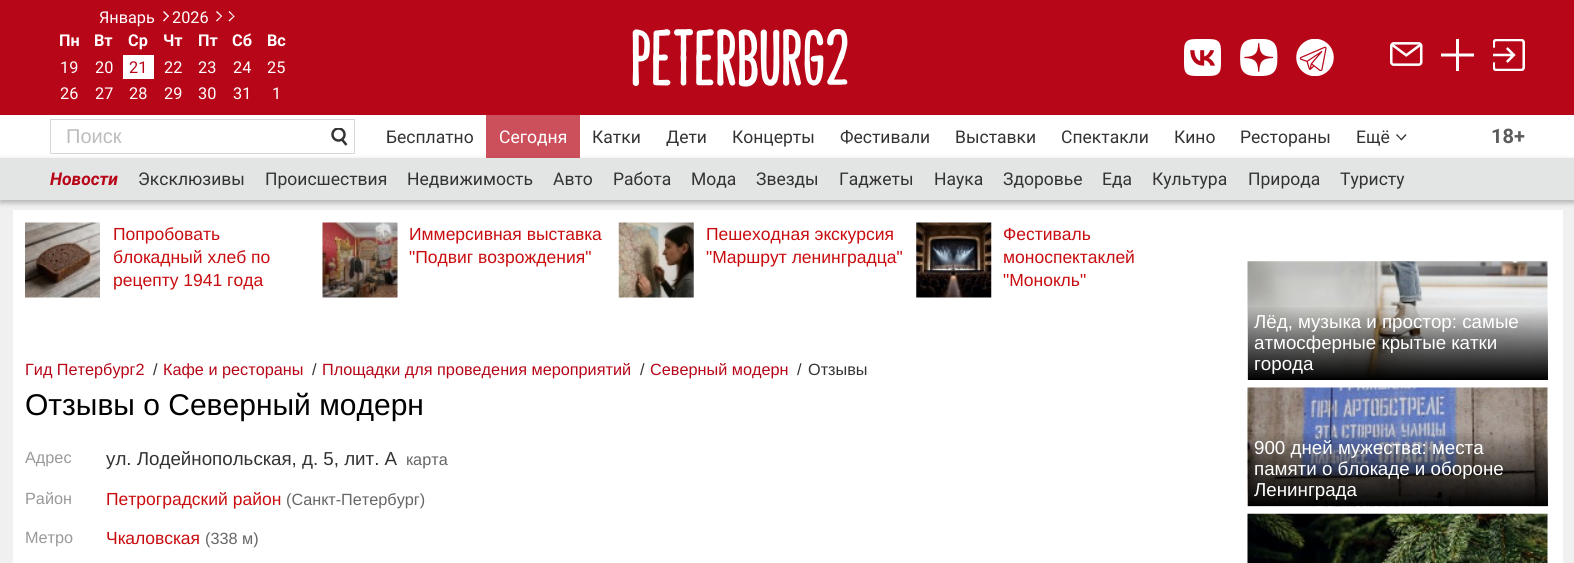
import math
import cairo

surface = cairo.ImageSurface(cairo.FORMAT_RGB24, 1574, 563)
ctx = cairo.Context(surface)
options = cairo.FontOptions()
options.set_hint_metrics(cairo.HINT_METRICS_OFF)
options.set_hint_style(cairo.HINT_STYLE_NONE)
ctx.set_font_options(options)
ctx.set_miter_limit(4)


def round_rect(x, y, w, h, r):
    ctx.new_sub_path()
    for i, (u, v) in enumerate([(x + w - r, y + h - r), (x + r, y + h - r), (x + r, y + r), (x + w - r, y + r)]):
        ctx.arc(u, v, r, i * math.pi / 2, (i + 1) * math.pi / 2)
    ctx.close_path()


def shadow(x, y, w, h, r, blur, alpha):
    ctx.push_group_with_content(cairo.CONTENT_ALPHA)
    ctx.set_operator(cairo.OPERATOR_SOURCE)
    for i in range(15, -16, -2):
        e = blur * i / 6
        if min(w, h) + 2 * e > 0:
            ctx.set_source_rgba(0, 0, 0, alpha * math.erfc((i - 1) / 8.5) / 2)
            round_rect(x - e, y - e, w + 2 * e, h + 2 * e, max(0, min(r + e + blur * .6, min(w, h) / 2 + e)))
            ctx.fill()
    ctx.mask(ctx.pop_group())


def picture(path, x, y, w, h):
    ctx.save()
    ctx.set_source_surface(cairo.ImageSurface.create_from_png(path), x, y)
    ctx.rectangle(x, y, w, h)
    ctx.fill()
    ctx.restore()


ctx.set_source_rgb(0.941, 0.941, 0.941)
ctx.paint()
ctx.set_source_rgb(0.718, 0.024, 0.094)
ctx.rectangle(0, 0, 1574, 115)
ctx.fill()
ctx.select_font_face("Roboto")
ctx.set_font_size(16.25)
ctx.set_source_rgb(1, 1, 1)
ctx.move_to(99, 23)
ctx.show_text("Январь")
ctx.new_path()
ctx.move_to(163, 12)
ctx.line_to(164, 11)
ctx.line_to(169, 16)
ctx.line_to(168, 17)
ctx.close_path()
ctx.fill()
ctx.new_path()
ctx.move_to(163, 20.5)
ctx.line_to(168, 15.5)
ctx.line_to(169, 16)
ctx.line_to(164, 21.5)
ctx.close_path()
ctx.fill()
ctx.move_to(172, 23)
ctx.show_text("2026")
ctx.new_path()
ctx.move_to(216, 12)
ctx.line_to(217, 11)
ctx.line_to(222, 16)
ctx.line_to(221.5, 17)
ctx.close_path()
ctx.fill()
ctx.new_path()
ctx.move_to(216, 20.5)
ctx.line_to(221.5, 15.5)
ctx.line_to(222, 16)
ctx.line_to(217, 21.5)
ctx.close_path()
ctx.move_to(228.5, 12)
ctx.line_to(229.5, 11)
ctx.line_to(234.5, 16.5)
ctx.line_to(234, 17)
ctx.close_path()
ctx.fill()
ctx.new_path()
ctx.move_to(228.5, 20.5)
ctx.line_to(234, 15.5)
ctx.line_to(234.5, 16.5)
ctx.line_to(229.5, 21.5)
ctx.close_path()
ctx.fill()
ctx.select_font_face("Roboto", cairo.FONT_SLANT_NORMAL, cairo.FONT_WEIGHT_BOLD)
ctx.move_to(59, 46)
ctx.show_text("Пн")
ctx.move_to(94, 46)
ctx.show_text("Вт")
ctx.move_to(128, 46)
ctx.show_text("Ср")
ctx.move_to(163, 46)
ctx.show_text("Чт")
ctx.move_to(198, 46)
ctx.show_text("Пт")
ctx.move_to(232, 46)
ctx.show_text("Сб")
ctx.move_to(267, 46)
ctx.show_text("Вс")
ctx.select_font_face("Roboto")
ctx.move_to(60, 73)
ctx.show_text("19")
ctx.move_to(95, 73)
ctx.show_text("20")
ctx.rectangle(123, 55, 31, 24)
ctx.fill()
ctx.set_source_rgb(0.718, 0.024, 0.094)
ctx.move_to(129, 73)
ctx.show_text("21")
ctx.set_source_rgb(1, 1, 1)
ctx.move_to(164, 73)
ctx.show_text("22")
ctx.move_to(198, 73)
ctx.show_text("23")
ctx.move_to(233, 73)
ctx.show_text("24")
ctx.move_to(267, 73)
ctx.show_text("25")
ctx.move_to(60, 99)
ctx.show_text("26")
ctx.move_to(95, 99)
ctx.show_text("27")
ctx.move_to(129, 99)
ctx.show_text("28")
ctx.move_to(164, 99)
ctx.show_text("29")
ctx.move_to(198, 99)
ctx.show_text("30")
ctx.move_to(233, 99)
ctx.show_text("31")
ctx.move_to(272, 99)
ctx.show_text("1")
picture("img1.png", 632, 29, 216, 58)
picture("img2.png", 1184, 39, 37, 37)
picture("img3.png", 1240, 39, 38, 37)
picture("img4.png", 1296, 39, 38, 37)
picture("img5.png", 1390, 42, 33, 24)
ctx.new_path()
ctx.move_to(1459, 53.5)
ctx.line_to(1459, 39)
ctx.line_to(1456, 39)
ctx.line_to(1456, 53.5)
ctx.line_to(1441, 53.5)
ctx.line_to(1441, 56.5)
ctx.line_to(1456, 56.5)
ctx.line_to(1456, 71)
ctx.line_to(1459, 71)
ctx.line_to(1459, 56.5)
ctx.line_to(1474, 56.5)
ctx.line_to(1474, 53.5)
ctx.close_path()
ctx.fill()
picture("img6.png", 1493, 39, 32, 32)
ctx.rectangle(0, 115, 1574, 43)
ctx.fill()
ctx.set_source_rgb(0.843, 0.843, 0.843)
ctx.rectangle(50, 119, 305, 1)
ctx.fill()
ctx.set_source_rgb(1, 1, 1)
ctx.rectangle(13, 210, 1550, 353)
ctx.fill()
ctx.set_source_rgb(0, 0, 0)
shadow(0, 160, 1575, 43, 0, 2.5, 0.25)
ctx.set_source_rgb(0.843, 0.843, 0.843)
ctx.rectangle(50, 153, 275, 1)
ctx.fill()
ctx.rectangle(50, 119, 1, 35)
ctx.fill()
ctx.select_font_face("Liberation Sans")
ctx.set_font_size(20)
ctx.set_source_rgb(0.737, 0.737, 0.737)
ctx.move_to(66, 143)
ctx.show_text("Поиск")
ctx.save()
ctx.rectangle(331, 128, 18, 18)
ctx.clip()
ctx.arc(338.5, 134.5, 6, 0, 2 * math.pi)
ctx.set_source_rgb(0.2, 0.2, 0.2)
ctx.set_line_width(2.5)
ctx.stroke()
ctx.restore()
ctx.new_path()
ctx.move_to(342, 139.5)
ctx.line_to(346.5, 145)
ctx.set_source_rgb(0.2, 0.2, 0.2)
ctx.set_line_width(2.5)
ctx.stroke()
ctx.set_source_rgb(0.843, 0.843, 0.843)
ctx.rectangle(354, 119, 1, 35)
ctx.fill()
ctx.rectangle(325, 153, 30, 1)
ctx.fill()
ctx.select_font_face("Roboto")
ctx.set_font_size(17.5)
ctx.set_source_rgb(0.2, 0.2, 0.2)
ctx.move_to(386, 143)
ctx.show_text("Бесплатно")
ctx.set_source_rgba(0.718, 0.024, 0.094, 0.7)
ctx.rectangle(486, 115, 94, 43)
ctx.fill()
ctx.set_source_rgb(1, 1, 1)
ctx.move_to(499, 143)
ctx.show_text("Сегодня")
ctx.set_source_rgb(0.2, 0.2, 0.2)
ctx.move_to(592, 143)
ctx.show_text("Катки")
ctx.move_to(666, 143)
ctx.show_text("Дети")
ctx.move_to(732, 143)
ctx.show_text("Концерты")
ctx.move_to(840, 143)
ctx.show_text("Фестивали")
ctx.move_to(955, 143)
ctx.show_text("Выставки")
ctx.move_to(1061, 143)
ctx.show_text("Спектакли")
ctx.move_to(1174, 143)
ctx.show_text("Кино")
ctx.move_to(1240, 143)
ctx.show_text("Рестораны")
ctx.move_to(1356, 143)
ctx.show_text("Ещё")
ctx.new_path()
ctx.move_to(1405.5, 134)
ctx.line_to(1406.5, 135)
ctx.line_to(1401.5, 140.5)
ctx.line_to(1400.5, 139.5)
ctx.close_path()
ctx.fill()
ctx.new_path()
ctx.move_to(1397, 134)
ctx.line_to(1402, 139.5)
ctx.line_to(1401.5, 140.5)
ctx.line_to(1396, 135)
ctx.close_path()
ctx.fill()
ctx.select_font_face("Roboto", cairo.FONT_SLANT_NORMAL, cairo.FONT_WEIGHT_BOLD)
ctx.set_font_size(20)
ctx.set_source_rgb(0.361, 0.361, 0.361)
ctx.move_to(1491, 143)
ctx.show_text("18+")
ctx.set_source_rgb(0.89, 0.894, 0.894)
ctx.rectangle(0, 158, 1574, 42)
ctx.fill()
ctx.select_font_face("Roboto", cairo.FONT_SLANT_ITALIC, cairo.FONT_WEIGHT_BOLD)
ctx.set_font_size(17.5)
ctx.set_source_rgb(0.718, 0.024, 0.094)
ctx.move_to(50, 185)
ctx.show_text("Новости")
ctx.select_font_face("Roboto")
ctx.set_source_rgb(0.2, 0.2, 0.2)
ctx.move_to(138, 185)
ctx.show_text("Эксклюзивы")
ctx.move_to(265, 185)
ctx.show_text("Происшествия")
ctx.move_to(407, 185)
ctx.show_text("Недвижимость")
ctx.move_to(553, 185)
ctx.show_text("Авто")
ctx.move_to(613, 185)
ctx.show_text("Работа")
ctx.move_to(691, 185)
ctx.show_text("Мода")
ctx.move_to(756, 185)
ctx.show_text("Звезды")
ctx.move_to(839, 185)
ctx.show_text("Гаджеты")
ctx.move_to(934, 185)
ctx.show_text("Наука")
ctx.move_to(1003, 185)
ctx.show_text("Здоровье")
ctx.move_to(1102, 185)
ctx.show_text("Еда")
ctx.move_to(1152, 185)
ctx.show_text("Культура")
ctx.move_to(1248, 185)
ctx.show_text("Природа")
ctx.move_to(1340, 185)
ctx.show_text("Туристу")
picture("img7.png", 25, 222, 75, 76)
ctx.select_font_face("Liberation Sans")
ctx.set_source_rgb(0.788, 0.047, 0.059)
ctx.move_to(113, 240)
ctx.show_text("Попробовать")
ctx.move_to(113, 263)
ctx.show_text("блокадный хлеб по")
ctx.move_to(113, 286)
ctx.show_text("рецепту 1941 года")
picture("img8.png", 322, 222, 76, 76)
ctx.move_to(409, 240)
ctx.show_text("Иммерсивная выставка")
ctx.move_to(409, 263)
ctx.show_text("\"Подвиг возрождения\"")
picture("img9.png", 618, 222, 76, 76)
ctx.move_to(706, 240)
ctx.show_text("Пешеходная экскурсия")
ctx.move_to(706, 263)
ctx.show_text("\"Маршрут ленинградца\"")
picture("img10.png", 916, 222, 76, 76)
ctx.move_to(1003, 240)
ctx.show_text("Фестиваль")
ctx.move_to(1003, 263)
ctx.show_text("моноспектаклей")
ctx.move_to(1003, 286)
ctx.show_text("\"Монокль\"")
ctx.set_font_size(16.25)
ctx.set_source_rgb(0.718, 0.024, 0.094)
ctx.move_to(25, 375)
ctx.show_text("Гид Петербург2")
ctx.set_source_rgb(0.2, 0.2, 0.2)
ctx.move_to(153, 375)
ctx.show_text("/")
ctx.set_source_rgb(0.718, 0.024, 0.094)
ctx.move_to(163, 375)
ctx.show_text("Кафе и рестораны")
ctx.set_source_rgb(0.2, 0.2, 0.2)
ctx.move_to(312, 375)
ctx.show_text("/")
ctx.set_source_rgb(0.718, 0.024, 0.094)
ctx.move_to(322, 375)
ctx.show_text("Площадки для проведения мероприятий")
ctx.set_source_rgb(0.2, 0.2, 0.2)
ctx.move_to(640, 375)
ctx.show_text("/")
ctx.set_source_rgb(0.718, 0.024, 0.094)
ctx.move_to(650, 375)
ctx.show_text("Северный модерн")
ctx.set_source_rgb(0.2, 0.2, 0.2)
ctx.move_to(797, 375)
ctx.show_text("/")
ctx.move_to(808, 375)
ctx.show_text("Отзывы")
ctx.set_font_size(30)
ctx.set_source_rgb(0, 0, 0)
ctx.move_to(25, 415)
ctx.show_text("Отзывы о Северный модерн")
ctx.set_font_size(16.25)
ctx.set_source_rgb(0.6, 0.6, 0.6)
ctx.move_to(25, 463)
ctx.show_text("Адрес")
ctx.set_font_size(18.75)
ctx.set_source_rgb(0.2, 0.2, 0.2)
ctx.move_to(106, 465)
ctx.show_text("ул. Лодейнопольская, д. 5, лит. А")
ctx.set_font_size(16.25)
ctx.set_source_rgb(0.4, 0.4, 0.4)
ctx.move_to(406, 465)
ctx.show_text("карта")
ctx.set_source_rgb(0.6, 0.6, 0.6)
ctx.move_to(25, 504)
ctx.show_text("Район")
ctx.set_font_size(17.5)
ctx.set_source_rgb(0.788, 0.047, 0.059)
ctx.move_to(106, 505)
ctx.show_text("Петроградский район")
ctx.set_font_size(16.25)
ctx.set_source_rgb(0.4, 0.4, 0.4)
ctx.move_to(286, 505)
ctx.show_text("(Санкт-Петербург)")
ctx.set_source_rgb(0.6, 0.6, 0.6)
ctx.move_to(25, 543)
ctx.show_text("Метро")
ctx.set_font_size(17.5)
ctx.set_source_rgb(0.788, 0.047, 0.059)
ctx.move_to(106, 544)
ctx.show_text("Чкаловская")
ctx.set_font_size(16.25)
ctx.set_source_rgb(0.4, 0.4, 0.4)
ctx.move_to(205, 544)
ctx.show_text("(338 м)")
picture("img11.png", 1247, 261, 301, 119)
gradient = cairo.LinearGradient(1398, 305, 1398, 380)
gradient.add_color_stop_rgba(0, 0, 0, 0, 0)
gradient.add_color_stop_rgba(1, 0, 0, 0, 1)
ctx.set_source(gradient)
ctx.rectangle(1248, 307, 300, 73)
ctx.fill()
ctx.set_font_size(18.75)
ctx.set_source_rgb(1, 1, 1)
ctx.move_to(1254, 328)
ctx.show_text("Лёд, музыка и простор: самые")
ctx.move_to(1254, 349)
ctx.show_text("атмосферные крытые катки")
ctx.move_to(1254, 370)
ctx.show_text("города")
picture("img12.png", 1247, 387, 301, 120)
gradient = cairo.LinearGradient(1398, 431, 1398, 506)
gradient.add_color_stop_rgba(0, 0, 0, 0, 0)
gradient.add_color_stop_rgba(1, 0, 0, 0, 1)
ctx.set_source(gradient)
ctx.rectangle(1248, 433, 300, 73)
ctx.fill()
ctx.set_source_rgb(1, 1, 1)
ctx.move_to(1254, 454)
ctx.show_text("900 дней мужества: места")
ctx.move_to(1254, 475)
ctx.show_text("памяти о блокаде и обороне")
ctx.move_to(1254, 496)
ctx.show_text("Ленинграда")
picture("img13.png", 1247, 513, 301, 50)
gradient = cairo.LinearGradient(1398, 558, 1398, 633)
gradient.add_color_stop_rgba(0, 0, 0, 0, 0)
gradient.add_color_stop_rgba(1, 0, 0, 0, 1)
ctx.set_source(gradient)
ctx.rectangle(1332, 560, 216, 3)
ctx.fill()
surface.write_to_png("page.png")
